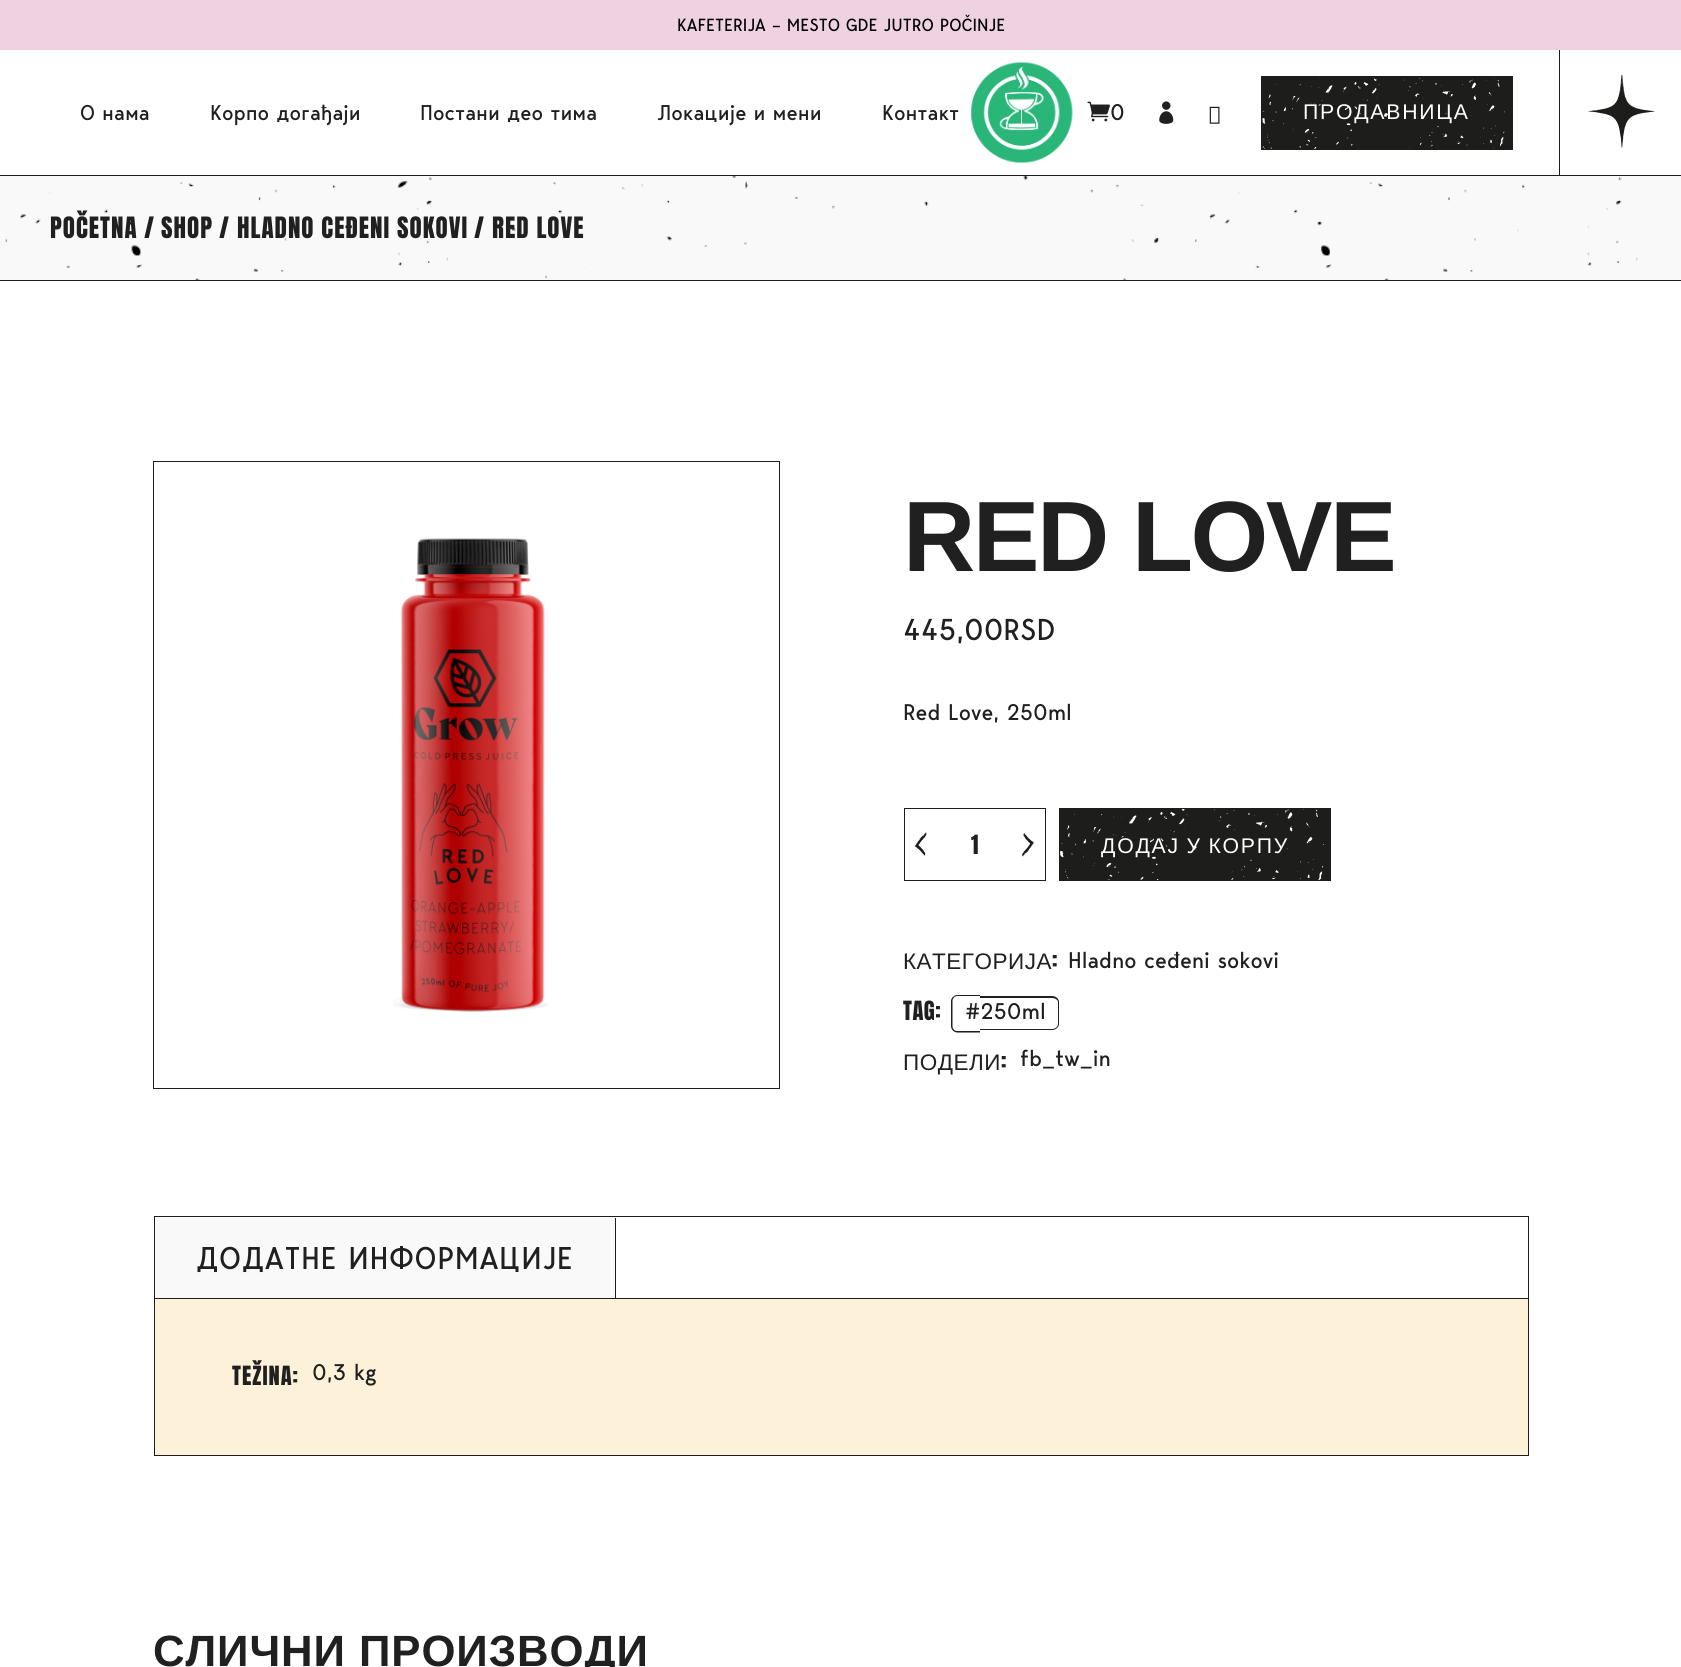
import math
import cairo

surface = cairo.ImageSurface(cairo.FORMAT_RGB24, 1681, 1667)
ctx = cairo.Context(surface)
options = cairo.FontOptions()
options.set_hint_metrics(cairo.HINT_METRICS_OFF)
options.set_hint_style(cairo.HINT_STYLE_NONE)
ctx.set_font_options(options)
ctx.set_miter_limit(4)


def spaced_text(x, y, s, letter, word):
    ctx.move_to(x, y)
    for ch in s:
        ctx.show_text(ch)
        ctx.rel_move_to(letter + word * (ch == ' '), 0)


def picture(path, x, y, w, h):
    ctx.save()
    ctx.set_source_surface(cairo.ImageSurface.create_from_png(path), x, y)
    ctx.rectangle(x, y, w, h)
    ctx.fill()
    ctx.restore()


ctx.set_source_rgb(1, 1, 1)
ctx.paint()
ctx.set_source_rgb(0.933, 0.824, 0.886)
ctx.rectangle(0, 0, 1681, 50)
ctx.fill()
ctx.select_font_face("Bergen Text")
ctx.set_font_size(17.5)
ctx.set_source_rgb(0, 0, 0)
ctx.move_to(677, 31)
ctx.show_text("KAFETERIJA – MESTO GDE JUTRO POČINJE")
ctx.set_font_size(21.25)
ctx.set_source_rgb(0.125, 0.125, 0.125)
ctx.move_to(80, 120)
ctx.show_text("О нама")
ctx.move_to(210, 120)
ctx.show_text("Корпо догађаји")
ctx.move_to(420, 120)
ctx.show_text("Постани део тима")
ctx.move_to(657, 120)
ctx.show_text("Локације и мени")
ctx.move_to(882, 120)
ctx.show_text("Контакт")
picture("img1.png", 971, 62, 102, 101)
picture("img2.png", 1087, 101, 23, 21)
ctx.set_font_size(22.5)
ctx.move_to(1110, 120)
ctx.show_text("0")
picture("img3.png", 1159, 101, 15, 23)
picture("img4.png", 1209, 106, 11, 18)
ctx.set_source_rgb(0.114, 0.114, 0.106)
ctx.rectangle(1261, 76, 252, 74)
ctx.fill()
picture("img5.png", 1262, 77, 243, 72)
ctx.select_font_face("Liberation Sans")
ctx.set_font_size(21.25)
ctx.set_source_rgb(1, 1, 1)
spaced_text(1303, 119, "ПРОДАВНИЦА", 1.75, 0)
ctx.set_source_rgb(0.114, 0.114, 0.106)
ctx.rectangle(1559, 50, 1, 125)
ctx.fill()
picture("img6.png", 1588, 75, 67, 73)
ctx.set_source_rgb(0.973, 0.973, 0.973)
ctx.rectangle(0, 176, 1681, 104)
ctx.fill()
picture("img7.png", 5, 176, 1633, 104)
ctx.set_source_rgb(0.114, 0.114, 0.106)
ctx.rectangle(0, 175, 1681, 1)
ctx.fill()
ctx.rectangle(0, 280, 1681, 1)
ctx.fill()
ctx.select_font_face("Anton")
ctx.set_font_size(25)
ctx.set_source_rgb(0.125, 0.125, 0.125)
spaced_text(50, 238, "POČETNA", 1, 0)
spaced_text(144, 238, "/", 1, 0)
spaced_text(161, 238, "SHOP", 1, 0)
spaced_text(219, 238, "/", 1, 0)
spaced_text(237, 238, "HLADNO CEĐENI SOKOVI", 1, 0)
spaced_text(474, 238, "/", 1, 0)
spaced_text(492, 238, "RED LOVE", 1, 0)
picture("img8.png", 393, 538, 155, 474)
ctx.rectangle(153.5, 461.5, 626, 627)
ctx.set_source_rgb(0.114, 0.114, 0.106)
ctx.set_line_width(1)
ctx.stroke()
ctx.select_font_face("Liberation Sans", cairo.FONT_SLANT_NORMAL, cairo.FONT_WEIGHT_BOLD)
ctx.set_font_size(100)
ctx.set_source_rgb(0.125, 0.125, 0.125)
spaced_text(903, 571, "RED LOVE", -2.5, 0)
ctx.select_font_face("Bergen Text")
ctx.set_font_size(30)
ctx.move_to(903, 640)
ctx.show_text("445,00RSD")
ctx.set_font_size(22.5)
ctx.move_to(903, 720)
ctx.show_text("Red Love, 250ml")
ctx.rectangle(904.5, 808.5, 141, 72)
ctx.set_source_rgb(0.114, 0.114, 0.106)
ctx.stroke()
picture("img9.png", 915, 832, 12, 24)
ctx.select_font_face("Anton")
ctx.set_source_rgb(0.125, 0.125, 0.125)
ctx.move_to(971, 854)
ctx.show_text("1")
picture("img10.png", 1022, 833, 12, 24)
ctx.set_source_rgb(0.114, 0.114, 0.106)
ctx.rectangle(1059, 808, 272, 73)
ctx.fill()
picture("img11.png", 1060, 809, 264, 71)
ctx.select_font_face("Liberation Sans")
ctx.set_font_size(21.25)
ctx.set_source_rgb(1, 1, 1)
spaced_text(1101, 853, "ДОДАЈ У КОРПУ", 1.75, -1)
ctx.set_font_size(22.5)
ctx.set_source_rgb(0.125, 0.125, 0.125)
spaced_text(903, 969, "КАТЕГОРИЈА", 0.5, 0)
ctx.select_font_face("Anton")
spaced_text(1052, 969, ":", 0.5, 0)
ctx.select_font_face("Bergen Text")
ctx.move_to(1068, 968)
ctx.show_text("Hladno ceđeni sokovi")
ctx.select_font_face("Anton")
spaced_text(903, 1020, "TAG:", 0.5, 0)
ctx.set_fill_rule(cairo.FILL_RULE_EVEN_ODD)
ctx.new_path()
ctx.move_to(957.5, 995)
ctx.line_to(980, 995)
ctx.line_to(980, 1032.5)
ctx.line_to(957.5, 1032.5)
ctx.curve_to(954, 1032.5, 951, 1029.5, 951, 1026)
ctx.line_to(951, 1001)
ctx.curve_to(951, 998, 954, 995, 957.5, 995)
ctx.close_path()
ctx.move_to(957.5, 996)
ctx.line_to(980, 996)
ctx.line_to(980, 1031)
ctx.line_to(957.5, 1031)
ctx.curve_to(954.5, 1031, 952.5, 1029, 952.5, 1026)
ctx.line_to(952.5, 1001)
ctx.curve_to(952.5, 998.5, 954.5, 996, 957.5, 996)
ctx.close_path()
ctx.fill()
ctx.new_path()
ctx.move_to(980, 996)
ctx.line_to(1052, 996)
ctx.curve_to(1056, 996, 1059, 999, 1059, 1002)
ctx.line_to(1059, 1024)
ctx.curve_to(1059, 1027, 1056, 1030, 1052, 1030)
ctx.line_to(980, 1030)
ctx.close_path()
ctx.move_to(980, 998)
ctx.line_to(1052, 998)
ctx.curve_to(1055, 998, 1058, 1000, 1058, 1002)
ctx.line_to(1058, 1024)
ctx.curve_to(1058, 1027, 1055, 1029, 1052, 1029)
ctx.line_to(980, 1029)
ctx.close_path()
ctx.fill()
ctx.select_font_face("Bergen Text")
ctx.move_to(965, 1019)
ctx.show_text("#250ml")
ctx.select_font_face("Liberation Sans")
spaced_text(903, 1070, "ПОДЕЛИ", 0.5, 0)
ctx.select_font_face("Anton")
spaced_text(1001, 1070, ":", 0.5, 0)
ctx.select_font_face("Bergen Text")
ctx.move_to(1020, 1066)
ctx.show_text("fb_tw_in")
ctx.rectangle(154.5, 1216.5, 1374, 239)
ctx.set_source_rgb(0.114, 0.114, 0.106)
ctx.stroke()
ctx.rectangle(155, 1298, 1373, 1)
ctx.fill()
ctx.set_source_rgb(0.973, 0.973, 0.973)
ctx.rectangle(155, 1218, 460, 80)
ctx.fill()
ctx.set_source_rgb(0.114, 0.114, 0.106)
ctx.rectangle(615, 1218, 1, 80)
ctx.fill()
ctx.set_font_size(31.25)
ctx.set_source_rgb(0.125, 0.125, 0.125)
spaced_text(196, 1269, "ДОДАТНЕ ИНФОРМАЦИЈЕ", 0.6, 0)
ctx.set_source_rgb(0.992, 0.945, 0.851)
ctx.rectangle(155, 1299, 1373, 156)
ctx.fill()
ctx.select_font_face("Anton")
ctx.set_font_size(22.5)
ctx.set_source_rgb(0.125, 0.125, 0.125)
spaced_text(232, 1385, "TEŽINA:", 1, 0)
ctx.select_font_face("Bergen Text")
ctx.move_to(312, 1380)
ctx.show_text("0,3 kg")
ctx.select_font_face("Liberation Sans", cairo.FONT_SLANT_NORMAL, cairo.FONT_WEIGHT_BOLD)
ctx.set_font_size(43.75)
spaced_text(153, 1666, "СЛИЧНИ ПРОИЗВОДИ", 0.9, 0)
surface.write_to_png("page.png")
